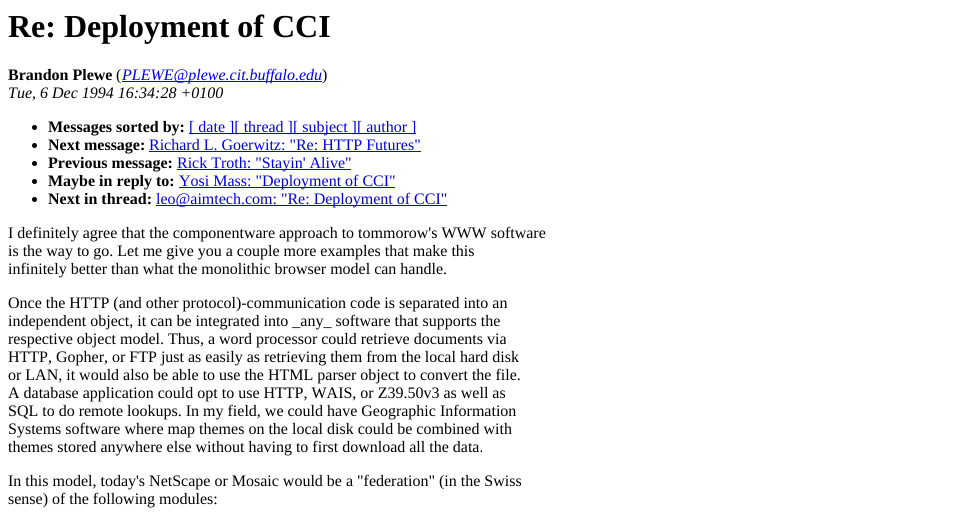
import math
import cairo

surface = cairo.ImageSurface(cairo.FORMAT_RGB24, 956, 515)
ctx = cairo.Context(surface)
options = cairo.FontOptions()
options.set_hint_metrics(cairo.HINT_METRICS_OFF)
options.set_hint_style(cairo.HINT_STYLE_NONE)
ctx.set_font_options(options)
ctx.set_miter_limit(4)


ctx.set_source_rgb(1, 1, 1)
ctx.paint()
ctx.select_font_face("Liberation Serif", cairo.FONT_SLANT_NORMAL, cairo.FONT_WEIGHT_BOLD)
ctx.set_font_size(32)
ctx.set_source_rgb(0, 0, 0)
ctx.move_to(8, 37)
ctx.show_text("Re: Deployment of CCI")
ctx.set_font_size(16)
ctx.move_to(8, 80)
ctx.show_text("Brandon Plewe")
ctx.select_font_face("Liberation Serif")
ctx.move_to(116, 80)
ctx.show_text("(")
ctx.set_source_rgb(0, 0, 0.933)
ctx.rectangle(122, 81, 200, 1)
ctx.fill()
ctx.select_font_face("Liberation Serif", cairo.FONT_SLANT_ITALIC)
ctx.move_to(122, 80)
ctx.show_text("PLEWE@plewe.cit.buffalo.edu")
ctx.select_font_face("Liberation Serif")
ctx.set_source_rgb(0, 0, 0)
ctx.move_to(322, 80)
ctx.show_text(")")
ctx.select_font_face("Liberation Serif", cairo.FONT_SLANT_ITALIC)
ctx.move_to(8, 98)
ctx.show_text("Tue, 6 Dec 1994 16:34:28 +0100")
ctx.new_path()
ctx.arc(34.5, 127.5, 2.5, 0, 2 * math.pi)
ctx.fill()
ctx.select_font_face("Liberation Serif", cairo.FONT_SLANT_NORMAL, cairo.FONT_WEIGHT_BOLD)
ctx.move_to(48, 132)
ctx.show_text("Messages sorted by:")
ctx.set_source_rgb(0, 0, 0.933)
ctx.rectangle(189, 133, 227, 1)
ctx.fill()
ctx.select_font_face("Liberation Serif")
ctx.move_to(189, 132)
ctx.show_text("[ date ][ thread ][ subject ][ author ]")
ctx.set_source_rgb(0, 0, 0)
ctx.new_path()
ctx.arc(34.5, 145.5, 2.5, 0, 2 * math.pi)
ctx.fill()
ctx.select_font_face("Liberation Serif", cairo.FONT_SLANT_NORMAL, cairo.FONT_WEIGHT_BOLD)
ctx.move_to(48, 150)
ctx.show_text("Next message:")
ctx.select_font_face("Liberation Serif")
ctx.set_source_rgb(0, 0, 0.933)
ctx.move_to(149, 150)
ctx.show_text("Richard L. Goerwitz: \"Re: HTTP Futures\"")
ctx.rectangle(149, 151, 272, 1)
ctx.fill()
ctx.set_source_rgb(0, 0, 0)
ctx.arc(34.5, 163.5, 2.5, 0, 2 * math.pi)
ctx.fill()
ctx.select_font_face("Liberation Serif", cairo.FONT_SLANT_NORMAL, cairo.FONT_WEIGHT_BOLD)
ctx.move_to(48, 168)
ctx.show_text("Previous message:")
ctx.set_source_rgb(0, 0, 0.933)
ctx.rectangle(177, 169, 174, 1)
ctx.fill()
ctx.select_font_face("Liberation Serif")
ctx.move_to(177, 168)
ctx.show_text("Rick Troth: \"Stayin' Alive\"")
ctx.set_source_rgb(0, 0, 0)
ctx.new_path()
ctx.arc(34.5, 181.5, 2.5, 0, 2 * math.pi)
ctx.fill()
ctx.select_font_face("Liberation Serif", cairo.FONT_SLANT_NORMAL, cairo.FONT_WEIGHT_BOLD)
ctx.move_to(48, 186)
ctx.show_text("Maybe in reply to:")
ctx.set_source_rgb(0, 0, 0.933)
ctx.rectangle(179, 187, 216, 1)
ctx.fill()
ctx.select_font_face("Liberation Serif")
ctx.move_to(179, 186)
ctx.show_text("Yosi Mass: \"Deployment of CCI\"")
ctx.set_source_rgb(0, 0, 0)
ctx.new_path()
ctx.arc(34.5, 199.5, 2.5, 0, 2 * math.pi)
ctx.fill()
ctx.select_font_face("Liberation Serif", cairo.FONT_SLANT_NORMAL, cairo.FONT_WEIGHT_BOLD)
ctx.move_to(48, 204)
ctx.show_text("Next in thread:")
ctx.set_source_rgb(0, 0, 0.933)
ctx.rectangle(156, 205, 291, 1)
ctx.fill()
ctx.select_font_face("Liberation Serif")
ctx.move_to(156, 204)
ctx.show_text("leo@aimtech.com: \"Re: Deployment of CCI\"")
ctx.set_source_rgb(0, 0, 0)
ctx.move_to(8, 238)
ctx.show_text("I definitely agree that the componentware approach to tommorow's WWW software")
ctx.move_to(8, 256)
ctx.show_text("is the way to go. Let me give you a couple more examples that make this")
ctx.move_to(8, 274)
ctx.show_text("infinitely better than what the monolithic browser model can handle.")
ctx.move_to(8, 308)
ctx.show_text("Once the HTTP (and other protocol)-communication code is separated into an")
ctx.move_to(8, 326)
ctx.show_text("independent object, it can be integrated into _any_ software that supports the")
ctx.move_to(8, 344)
ctx.show_text("respective object model. Thus, a word processor could retrieve documents via")
ctx.move_to(8, 362)
ctx.show_text("HTTP, Gopher, or FTP just as easily as retrieving them from the local hard disk")
ctx.move_to(8, 380)
ctx.show_text("or LAN, it would also be able to use the HTML parser object to convert the file.")
ctx.move_to(8, 398)
ctx.show_text("A database application could opt to use HTTP, WAIS, or Z39.50v3 as well as")
ctx.move_to(8, 416)
ctx.show_text("SQL to do remote lookups. In my field, we could have Geographic Information")
ctx.move_to(8, 434)
ctx.show_text("Systems software where map themes on the local disk could be combined with")
ctx.move_to(8, 452)
ctx.show_text("themes stored anywhere else without having to first download all the data.")
ctx.move_to(8, 486)
ctx.show_text("In this model, today's NetScape or Mosaic would be a \"federation\" (in the Swiss")
ctx.move_to(8, 504)
ctx.show_text("sense) of the following modules:")
surface.write_to_png("page.png")
